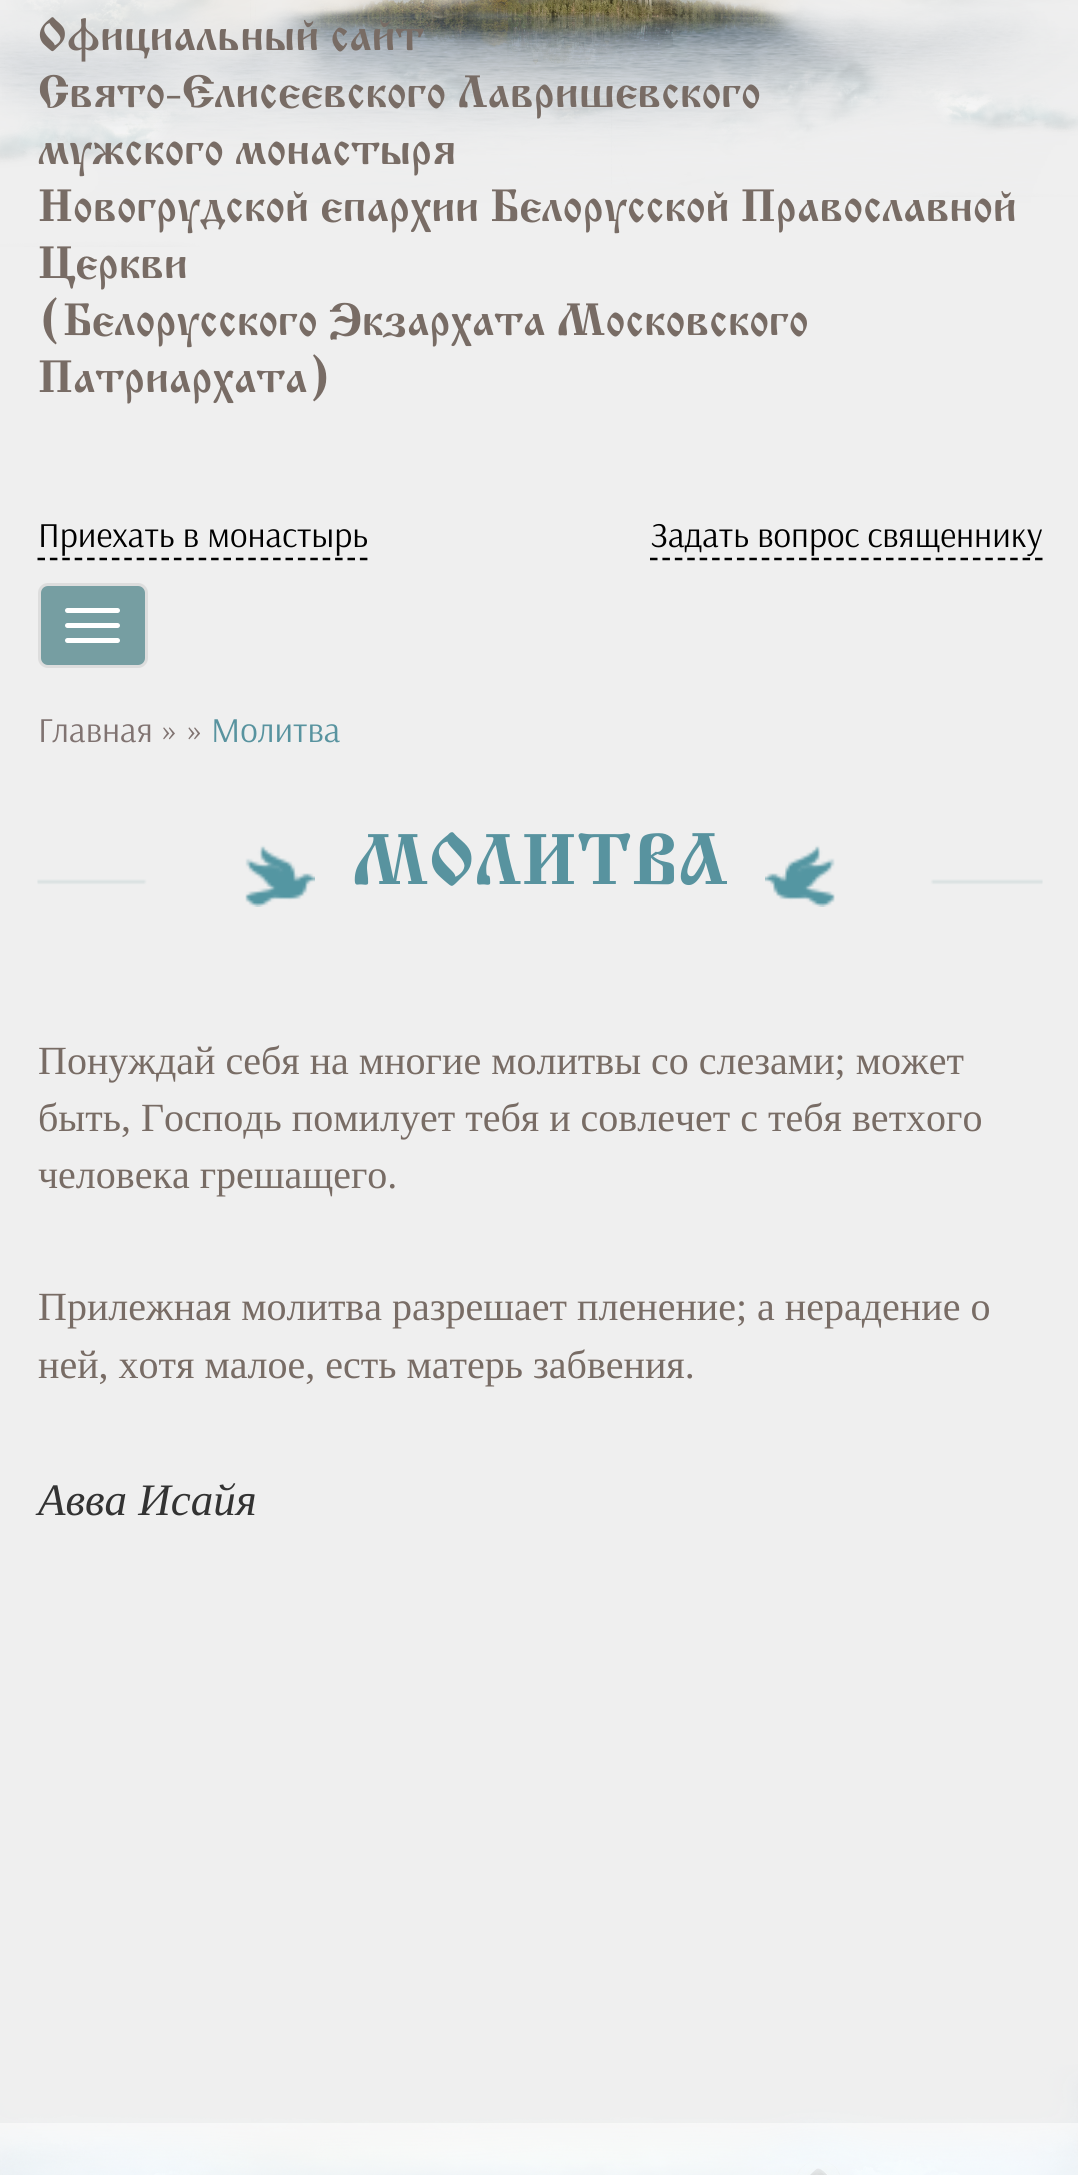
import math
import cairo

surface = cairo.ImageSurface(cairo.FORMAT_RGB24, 1078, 2175)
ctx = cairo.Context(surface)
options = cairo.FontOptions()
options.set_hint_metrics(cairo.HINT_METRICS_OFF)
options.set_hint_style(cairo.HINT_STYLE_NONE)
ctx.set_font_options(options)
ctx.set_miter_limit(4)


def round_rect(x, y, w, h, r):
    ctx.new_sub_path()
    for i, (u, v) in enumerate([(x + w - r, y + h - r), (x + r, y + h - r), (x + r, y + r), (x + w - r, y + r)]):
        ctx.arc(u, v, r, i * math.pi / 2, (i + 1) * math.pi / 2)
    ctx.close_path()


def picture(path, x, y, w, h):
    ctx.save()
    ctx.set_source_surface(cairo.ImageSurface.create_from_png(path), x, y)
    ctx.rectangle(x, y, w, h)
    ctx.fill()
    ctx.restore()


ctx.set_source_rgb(0.937, 0.937, 0.937)
ctx.paint()
picture("img1.png", 0, 0, 1078, 2175)
ctx.select_font_face("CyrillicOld", cairo.FONT_SLANT_NORMAL, cairo.FONT_WEIGHT_BOLD)
ctx.set_font_size(47.5)
ctx.set_source_rgb(0.471, 0.424, 0.396)
ctx.move_to(38, 50)
ctx.show_text("Официальный сайт")
ctx.move_to(38, 107)
ctx.show_text("Свято-Елисеевского Лавришевского")
ctx.move_to(38, 164)
ctx.show_text("мужского монастыря")
ctx.move_to(38, 221)
ctx.show_text("Новогрудской епархии Белорусской Православной")
ctx.move_to(38, 278)
ctx.show_text("Церкви")
ctx.move_to(38, 335)
ctx.show_text("(Белорусского Экзархата Московского")
ctx.move_to(38, 392)
ctx.show_text("Патриархата)")
ctx.select_font_face("Arsenal")
ctx.set_font_size(35)
ctx.set_source_rgb(0, 0, 0)
ctx.move_to(38, 547)
ctx.show_text("Приехать в монастырь")
ctx.new_path()
ctx.move_to(37.5, 559)
ctx.line_to(367.5, 559)
ctx.set_line_width(2.5)
ctx.set_dash([7.5, 4.9])
ctx.stroke()
ctx.move_to(651, 547)
ctx.show_text("Задать вопрос священнику")
ctx.new_path()
ctx.move_to(650, 559)
ctx.line_to(1042.5, 559)
ctx.set_dash([7.5, 4.92])
ctx.stroke()
ctx.set_source_rgb(0.463, 0.62, 0.635)
round_rect(39.5, 584.5, 107, 82, 8.5)
ctx.fill_preserve()
ctx.set_source_rgb(0.867, 0.867, 0.867)
ctx.set_line_width(3)
ctx.set_dash([])
ctx.stroke()
ctx.set_source_rgb(1, 1, 1)
round_rect(65, 608, 55, 5, 2.5)
ctx.fill()
round_rect(65, 623, 55, 5, 2.5)
ctx.fill()
round_rect(65, 638, 55, 5, 2.5)
ctx.fill()
ctx.set_source_rgb(0.502, 0.451, 0.443)
ctx.move_to(38, 742)
ctx.show_text("Главная » »")
ctx.set_source_rgb(0.345, 0.576, 0.624)
ctx.move_to(211, 742)
ctx.show_text("Молитва")
picture("img2.png", 37, 845, 278, 62)
ctx.select_font_face("CyrillicOld", cairo.FONT_SLANT_NORMAL, cairo.FONT_WEIGHT_BOLD)
ctx.set_font_size(75)
ctx.move_to(352, 884)
ctx.show_text("МОЛИТВА")
picture("img3.png", 765, 845, 278, 62)
ctx.select_font_face("Liberation Serif")
ctx.set_font_size(40)
ctx.set_source_rgb(0.471, 0.424, 0.396)
ctx.move_to(38, 1074)
ctx.show_text("Понуждай себя на многие молитвы со слезами; может")
ctx.move_to(38, 1131)
ctx.show_text("быть, Господь помилует тебя и совлечет с тебя ветхого")
ctx.move_to(38, 1188)
ctx.show_text("человека грешащего.")
ctx.move_to(38, 1320)
ctx.show_text("Прилежная молитва разрешает пленение; а нерадение о")
ctx.move_to(38, 1378)
ctx.show_text("ней, хотя малое, есть матерь забвения.")
ctx.select_font_face("Liberation Serif", cairo.FONT_SLANT_ITALIC)
ctx.set_font_size(45)
ctx.set_source_rgb(0.2, 0.2, 0.2)
ctx.move_to(38, 1515)
ctx.show_text("Авва Исайя")
ctx.set_source_rgba(1, 1, 1, 0.51)
ctx.rectangle(0, 2123, 1078, 52)
ctx.fill()
surface.write_to_png("page.png")
